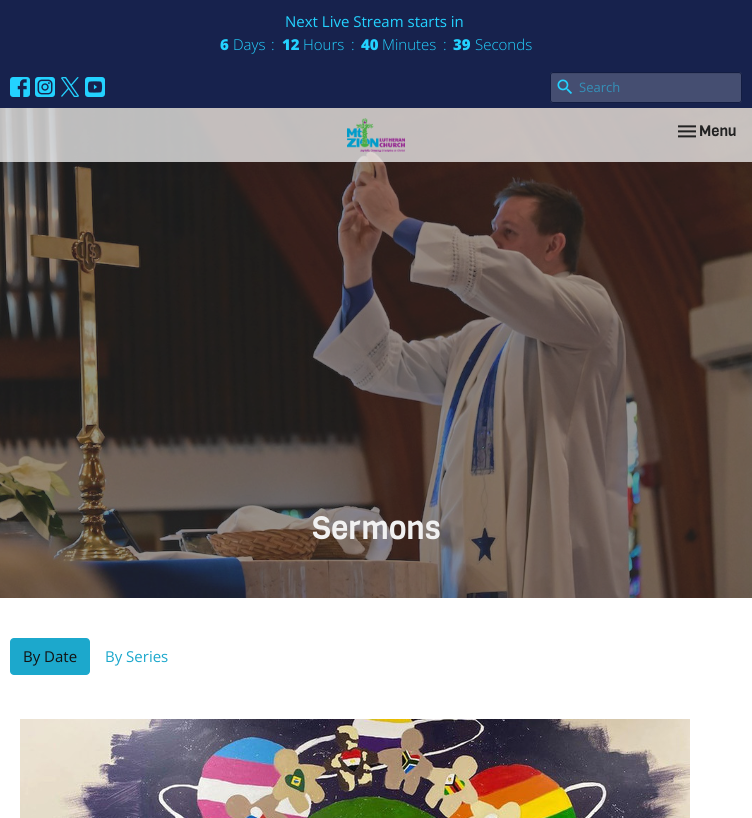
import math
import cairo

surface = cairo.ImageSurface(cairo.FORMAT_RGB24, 752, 818)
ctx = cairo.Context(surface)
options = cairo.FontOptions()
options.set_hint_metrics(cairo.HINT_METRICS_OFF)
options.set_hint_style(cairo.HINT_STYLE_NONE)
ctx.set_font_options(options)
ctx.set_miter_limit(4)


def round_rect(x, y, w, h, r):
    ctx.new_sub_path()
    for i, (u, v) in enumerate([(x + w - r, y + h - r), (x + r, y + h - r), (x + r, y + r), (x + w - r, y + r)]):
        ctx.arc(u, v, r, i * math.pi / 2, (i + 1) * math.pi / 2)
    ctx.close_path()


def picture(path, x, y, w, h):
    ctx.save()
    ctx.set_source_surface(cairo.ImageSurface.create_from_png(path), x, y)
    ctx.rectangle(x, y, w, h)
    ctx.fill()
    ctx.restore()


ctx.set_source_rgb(1, 1, 1)
ctx.paint()
ctx.set_source_rgb(0.09, 0.133, 0.302)
ctx.rectangle(0, 0, 752, 108)
ctx.fill()
ctx.select_font_face("Open Sans")
ctx.set_font_size(15)
ctx.set_source_rgb(0.137, 0.824, 1)
ctx.move_to(285, 27)
ctx.show_text("Next Live Stream starts in")
ctx.select_font_face("Open Sans ExtraBold")
ctx.move_to(220, 50)
ctx.show_text("6")
ctx.select_font_face("Open Sans Light")
ctx.move_to(233, 50)
ctx.show_text("Days")
ctx.move_to(271, 50)
ctx.show_text(":")
ctx.select_font_face("Open Sans ExtraBold")
ctx.move_to(282, 50)
ctx.show_text("12")
ctx.select_font_face("Open Sans Light")
ctx.move_to(303, 50)
ctx.show_text("Hours")
ctx.move_to(351, 50)
ctx.show_text(":")
ctx.select_font_face("Open Sans ExtraBold")
ctx.move_to(361, 50)
ctx.show_text("40")
ctx.select_font_face("Open Sans Light")
ctx.move_to(382, 50)
ctx.show_text("Minutes")
ctx.move_to(443, 50)
ctx.show_text(":")
ctx.select_font_face("Open Sans ExtraBold")
ctx.move_to(453, 50)
ctx.show_text("39")
ctx.select_font_face("Open Sans Light")
ctx.move_to(475, 50)
ctx.show_text("Seconds")
picture("img1.png", 10, 77, 20, 20)
picture("img2.png", 35, 77, 20, 20)
picture("img3.png", 61, 77, 18, 20)
picture("img4.png", 85, 77, 20, 20)
ctx.set_source_rgb(0.271, 0.306, 0.443)
round_rect(550, 72, 192, 31, 3)
ctx.fill()
ctx.set_source_rgb(0.251, 0.282, 0.412)
ctx.new_path()
ctx.move_to(553, 74)
ctx.line_to(739, 74)
ctx.line_to(741, 75)
ctx.line_to(741, 76)
ctx.line_to(741, 75)
ctx.curve_to(741, 74, 740, 73, 739, 73)
ctx.line_to(553, 73)
ctx.curve_to(552, 73, 551, 74, 551, 75)
ctx.line_to(551, 76)
ctx.curve_to(551, 75, 552, 74, 553, 74)
ctx.close_path()
ctx.fill()
round_rect(550.5, 72.5, 191, 30, 2.5)
ctx.set_source_rgb(0.075, 0.114, 0.255)
ctx.set_line_width(1)
ctx.stroke()
picture("img5.png", 557, 79, 15, 15)
ctx.select_font_face("Open Sans")
ctx.set_font_size(13)
ctx.set_source_rgb(0.204, 0.565, 0.722)
ctx.move_to(579, 92)
ctx.show_text("Search")
picture("img8.png", 0, 108, 752, 490)
ctx.set_source_rgba(1, 1, 1, 0.71)
ctx.rectangle(0, 108, 752, 54)
ctx.fill()
picture("img6.png", 347, 118, 58, 34)
picture("img7.png", 678, 125, 18, 13)
ctx.select_font_face("Viga")
ctx.set_font_size(15)
ctx.set_source_rgb(0.133, 0.133, 0.133)
ctx.move_to(699, 136)
ctx.show_text("Menu")
ctx.set_font_size(32)
ctx.set_source_rgb(0.945, 0.945, 0.945)
ctx.move_to(312, 539)
ctx.show_text("Sermons")
ctx.set_source_rgb(0.11, 0.659, 0.8)
round_rect(10, 638, 80, 37, 4)
ctx.fill()
ctx.select_font_face("Open Sans")
ctx.set_font_size(15)
ctx.set_source_rgb(0.071, 0.071, 0.071)
ctx.move_to(23, 662)
ctx.show_text("By Date")
ctx.set_source_rgb(0.11, 0.659, 0.8)
ctx.move_to(105, 662)
ctx.show_text("By Series")
picture("img9.png", 20, 719, 670, 99)
surface.write_to_png("page.png")
